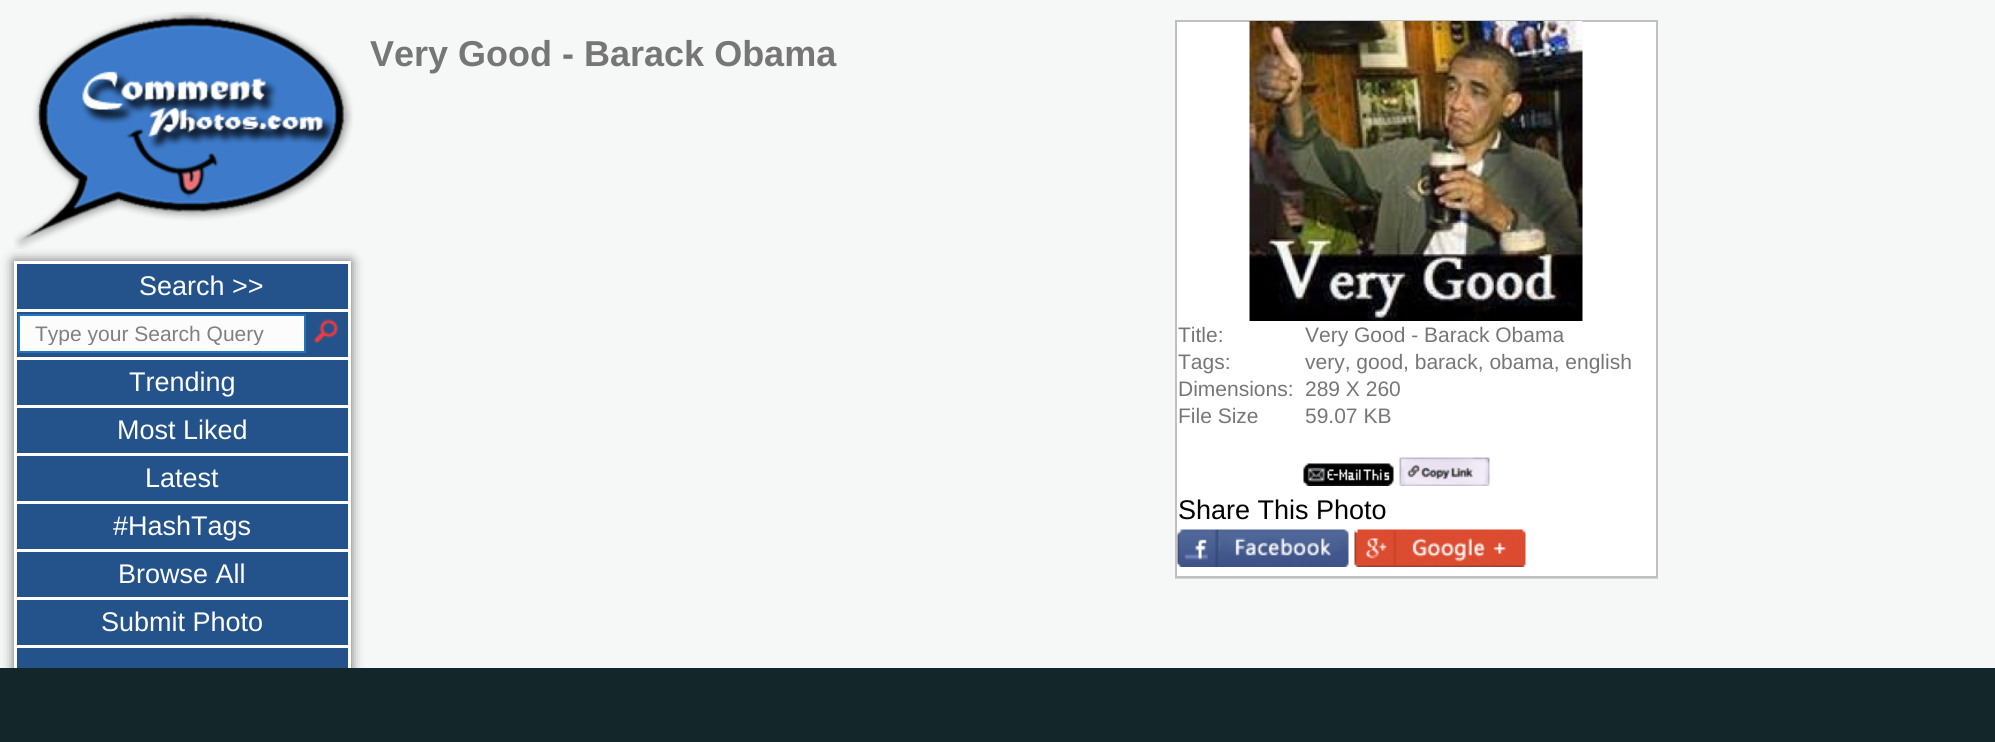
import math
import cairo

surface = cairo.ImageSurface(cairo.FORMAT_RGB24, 1995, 742)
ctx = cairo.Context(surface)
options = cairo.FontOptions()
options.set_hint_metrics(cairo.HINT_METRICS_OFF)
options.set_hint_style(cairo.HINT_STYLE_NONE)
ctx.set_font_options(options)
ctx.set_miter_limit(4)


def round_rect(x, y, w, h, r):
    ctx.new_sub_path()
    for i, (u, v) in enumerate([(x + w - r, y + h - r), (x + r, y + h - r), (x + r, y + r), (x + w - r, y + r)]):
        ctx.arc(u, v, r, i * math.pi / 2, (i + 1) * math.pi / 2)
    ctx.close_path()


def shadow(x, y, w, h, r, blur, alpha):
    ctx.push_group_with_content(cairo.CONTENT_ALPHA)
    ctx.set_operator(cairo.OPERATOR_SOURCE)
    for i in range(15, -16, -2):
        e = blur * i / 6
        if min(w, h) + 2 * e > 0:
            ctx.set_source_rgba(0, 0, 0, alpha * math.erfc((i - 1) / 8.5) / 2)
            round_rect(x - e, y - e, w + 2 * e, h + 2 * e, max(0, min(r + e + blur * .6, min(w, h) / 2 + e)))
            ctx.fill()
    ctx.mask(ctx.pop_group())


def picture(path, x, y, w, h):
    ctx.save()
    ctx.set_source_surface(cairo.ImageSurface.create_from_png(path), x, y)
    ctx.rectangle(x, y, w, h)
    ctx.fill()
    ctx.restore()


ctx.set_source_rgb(0.961, 0.965, 0.965)
ctx.paint()
picture("img1.png", 14, 12, 339, 237)
ctx.set_source_rgb(0.4, 0.4, 0.4)
shadow(14, 261, 337, 435, 0, 6, 1)
ctx.set_source_rgb(1, 1, 1)
ctx.rectangle(14, 261, 337, 407)
ctx.fill()
ctx.set_source_rgb(0.137, 0.325, 0.541)
ctx.rectangle(17, 264, 331, 45)
ctx.fill()
ctx.select_font_face("Liberation Sans")
ctx.set_font_size(27)
ctx.set_source_rgb(1, 1, 1)
ctx.move_to(139, 295)
ctx.show_text("Search >>")
ctx.set_source_rgb(0.137, 0.325, 0.541)
ctx.rectangle(17, 312, 331, 45)
ctx.fill()
ctx.set_source_rgb(0.988, 0.988, 0.988)
ctx.rectangle(19, 315, 286, 37)
ctx.fill_preserve()
ctx.set_source_rgb(0.133, 0.463, 0.733)
ctx.stroke()
ctx.save()
ctx.rectangle(26, 321, 273, 24)
ctx.clip()
ctx.set_font_size(21)
ctx.set_source_rgb(0.502, 0.502, 0.502)
ctx.move_to(35, 341)
ctx.show_text("Type your Search Query")
ctx.restore()
picture("img2.png", 313, 319, 25, 25)
ctx.set_source_rgb(0.137, 0.325, 0.541)
ctx.rectangle(17, 360, 331, 45)
ctx.fill()
ctx.set_source_rgb(1, 1, 1)
ctx.move_to(129, 391)
ctx.show_text("Trending")
ctx.set_source_rgb(0.137, 0.325, 0.541)
ctx.rectangle(17, 408, 331, 45)
ctx.fill()
ctx.set_source_rgb(1, 1, 1)
ctx.move_to(117, 439)
ctx.show_text("Most Liked")
ctx.set_source_rgb(0.137, 0.325, 0.541)
ctx.rectangle(17, 456, 331, 45)
ctx.fill()
ctx.set_source_rgb(1, 1, 1)
ctx.move_to(145, 487)
ctx.show_text("Latest")
ctx.set_source_rgb(0.137, 0.325, 0.541)
ctx.rectangle(17, 504, 331, 45)
ctx.fill()
ctx.set_source_rgb(1, 1, 1)
ctx.move_to(113, 535)
ctx.show_text("#HashTags")
ctx.set_source_rgb(0.137, 0.325, 0.541)
ctx.rectangle(17, 552, 331, 45)
ctx.fill()
ctx.set_source_rgb(1, 1, 1)
ctx.move_to(118, 583)
ctx.show_text("Browse All")
ctx.set_source_rgb(0.137, 0.325, 0.541)
ctx.rectangle(17, 600, 331, 45)
ctx.fill()
ctx.set_source_rgb(1, 1, 1)
ctx.move_to(101, 631)
ctx.show_text("Submit Photo")
ctx.set_source_rgb(0.137, 0.325, 0.541)
ctx.rectangle(17, 648, 331, 20)
ctx.fill()
ctx.select_font_face("Liberation Sans", cairo.FONT_SLANT_NORMAL, cairo.FONT_WEIGHT_BOLD)
ctx.set_font_size(36)
ctx.set_source_rgb(0.463, 0.463, 0.463)
ctx.move_to(370, 66)
ctx.show_text("Very Good - Barack Obama")
ctx.set_source_rgb(1, 1, 1)
ctx.rectangle(1177, 22, 479, 554)
ctx.fill()
ctx.set_source_rgb(0.753, 0.753, 0.753)
ctx.rectangle(1175, 20, 483, 2)
ctx.fill()
ctx.rectangle(1656, 20, 2, 558)
ctx.fill()
ctx.rectangle(1175, 20, 2, 301)
ctx.fill()
picture("img3.png", 1249, 21, 334, 300)
ctx.set_source_rgb(0.831, 0.831, 0.831)
ctx.new_path()
ctx.move_to(1175, 578)
ctx.line_to(1175, 579)
ctx.line_to(1658, 579)
ctx.line_to(1658, 323)
ctx.line_to(1658, 578)
ctx.close_path()
ctx.fill()
ctx.set_source_rgb(0.753, 0.753, 0.753)
ctx.rectangle(1175, 576, 483, 2)
ctx.fill()
ctx.rectangle(1175, 321, 2, 257)
ctx.fill()
ctx.select_font_face("Liberation Sans")
ctx.set_font_size(21)
ctx.set_source_rgb(0.463, 0.463, 0.463)
ctx.move_to(1178, 342)
ctx.show_text("Title:")
ctx.move_to(1305, 342)
ctx.show_text("Very Good - Barack Obama")
ctx.move_to(1178, 369)
ctx.show_text("Tags:")
ctx.move_to(1305, 369)
ctx.show_text("very, good, barack, obama, english")
ctx.move_to(1178, 396)
ctx.show_text("Dimensions:")
ctx.move_to(1305, 396)
ctx.show_text("289 X 260")
ctx.move_to(1178, 423)
ctx.show_text("File Size")
ctx.move_to(1305, 423)
ctx.show_text("59.07 KB")
picture("img4.png", 1303, 463, 91, 23)
picture("img5.png", 1399, 457, 91, 29)
ctx.set_font_size(27)
ctx.set_source_rgb(0, 0, 0)
ctx.move_to(1178, 519)
ctx.show_text("Share This Photo")
picture("img6.png", 1177, 529, 172, 38)
picture("img7.png", 1354, 529, 172, 38)
ctx.set_source_rgb(0.078, 0.153, 0.165)
ctx.rectangle(0, 668, 1995, 74)
ctx.fill()
surface.write_to_png("page.png")
